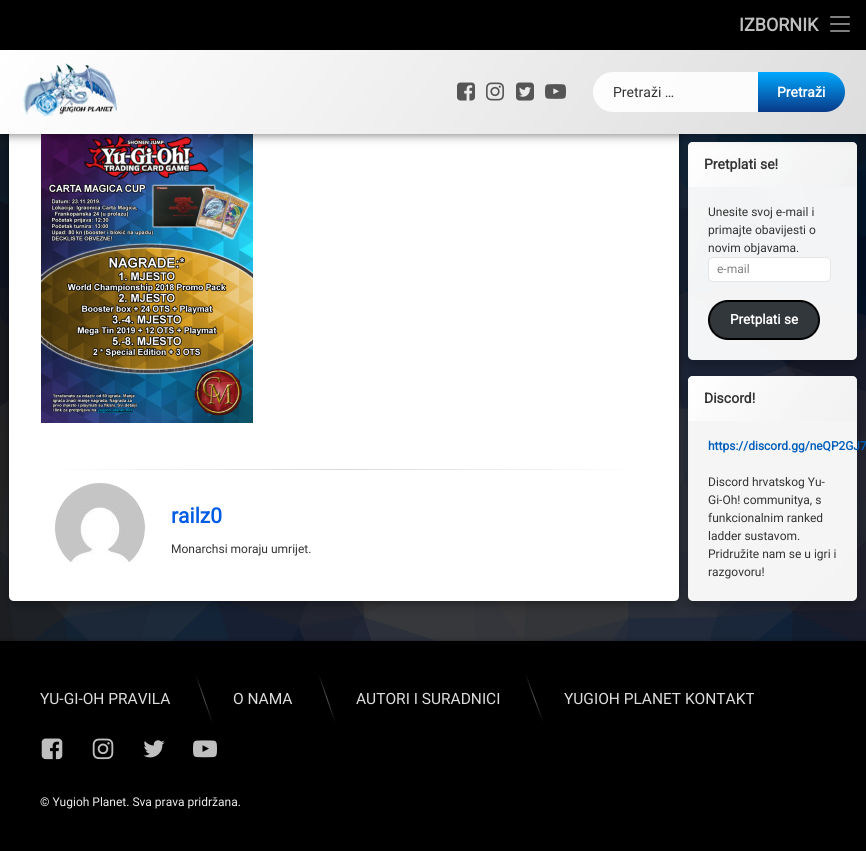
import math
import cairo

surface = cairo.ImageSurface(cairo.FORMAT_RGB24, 866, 851)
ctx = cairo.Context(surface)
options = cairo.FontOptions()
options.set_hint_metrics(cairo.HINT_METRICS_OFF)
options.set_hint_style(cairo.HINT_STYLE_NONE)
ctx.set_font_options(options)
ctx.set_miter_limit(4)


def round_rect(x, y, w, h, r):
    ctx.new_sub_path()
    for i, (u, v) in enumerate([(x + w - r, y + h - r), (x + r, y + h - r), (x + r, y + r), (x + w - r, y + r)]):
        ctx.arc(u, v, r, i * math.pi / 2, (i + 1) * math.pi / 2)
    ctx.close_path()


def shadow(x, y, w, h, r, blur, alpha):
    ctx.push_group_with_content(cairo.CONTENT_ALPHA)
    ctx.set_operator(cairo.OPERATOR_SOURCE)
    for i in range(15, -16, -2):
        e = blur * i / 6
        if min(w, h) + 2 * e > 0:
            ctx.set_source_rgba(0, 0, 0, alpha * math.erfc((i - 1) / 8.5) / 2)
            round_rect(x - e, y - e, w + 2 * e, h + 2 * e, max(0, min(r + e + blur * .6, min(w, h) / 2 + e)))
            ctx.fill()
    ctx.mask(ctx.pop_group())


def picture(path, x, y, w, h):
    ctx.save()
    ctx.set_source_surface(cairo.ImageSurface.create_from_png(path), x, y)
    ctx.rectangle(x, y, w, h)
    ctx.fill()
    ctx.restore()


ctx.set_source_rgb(1, 1, 1)
ctx.paint()
picture("img12.png", 0, 134, 866, 507)
ctx.set_source_rgb(0, 0, 0)
shadow(9, -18, 670, 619, 10, 2.5, 0.25)
ctx.save()
ctx.set_fill_rule(cairo.FILL_RULE_EVEN_ODD)
ctx.new_path()
ctx.move_to(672, 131)
ctx.line_to(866, 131)
ctx.line_to(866, 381)
ctx.line_to(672, 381)
ctx.close_path()
ctx.move_to(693, 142)
ctx.line_to(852, 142)
ctx.curve_to(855, 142, 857, 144, 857, 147)
ctx.line_to(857, 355)
ctx.curve_to(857, 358, 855, 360, 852, 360)
ctx.line_to(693, 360)
ctx.curve_to(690, 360, 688, 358, 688, 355)
ctx.line_to(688, 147)
ctx.curve_to(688, 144, 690, 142, 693, 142)
ctx.close_path()
ctx.clip()
shadow(688, 147, 169, 218, 5, 5, 0.25)
ctx.restore()
ctx.set_source_rgba(1, 1, 1, 0.95)
round_rect(688, 142, 169, 218, 5)
ctx.fill()
gradient = cairo.LinearGradient(705, 117, 840, 212)
gradient.add_color_stop_rgba(0, 1, 1, 1, 1)
gradient.add_color_stop_rgba(1, 0.941, 0.941, 0.941, 0.75)
ctx.set_source(gradient)
ctx.new_path()
ctx.move_to(693, 142)
ctx.line_to(852, 142)
ctx.curve_to(855, 142, 857, 144, 857, 147)
ctx.line_to(857, 187)
ctx.line_to(688, 187)
ctx.line_to(688, 147)
ctx.curve_to(688, 144, 690, 142, 693, 142)
ctx.close_path()
ctx.fill()
ctx.save()
ctx.set_fill_rule(cairo.FILL_RULE_EVEN_ODD)
ctx.new_path()
ctx.move_to(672, 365)
ctx.line_to(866, 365)
ctx.line_to(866, 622)
ctx.line_to(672, 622)
ctx.close_path()
ctx.move_to(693, 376)
ctx.line_to(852, 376)
ctx.curve_to(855, 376, 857, 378, 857, 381)
ctx.line_to(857, 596)
ctx.curve_to(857, 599, 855, 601, 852, 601)
ctx.line_to(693, 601)
ctx.curve_to(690, 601, 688, 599, 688, 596)
ctx.line_to(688, 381)
ctx.curve_to(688, 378, 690, 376, 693, 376)
ctx.close_path()
ctx.clip()
ctx.set_source_rgb(0, 0, 0)
shadow(688, 381, 169, 225, 5, 5, 0.25)
ctx.restore()
ctx.set_source_rgba(1, 1, 1, 0.95)
round_rect(688, 376, 169, 225, 5)
ctx.fill()
gradient = cairo.LinearGradient(705, 351, 840, 446)
gradient.add_color_stop_rgba(0, 1, 1, 1, 1)
gradient.add_color_stop_rgba(1, 0.941, 0.941, 0.941, 0.75)
ctx.set_source(gradient)
ctx.new_path()
ctx.move_to(693, 376)
ctx.line_to(852, 376)
ctx.curve_to(855, 376, 857, 378, 857, 381)
ctx.line_to(857, 421)
ctx.line_to(688, 421)
ctx.line_to(688, 381)
ctx.curve_to(688, 378, 690, 376, 693, 376)
ctx.close_path()
ctx.fill()
ctx.set_source_rgb(0, 0, 0)
shadow(9, -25, 670, 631, 10, 5, 0.25)
ctx.set_source_rgb(1, 1, 1)
ctx.new_path()
ctx.move_to(19, -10)
ctx.line_to(669, -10)
ctx.curve_to(674.5, -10, 679, -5.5, 679, 0)
ctx.line_to(679, 596)
ctx.curve_to(679, 599, 677, 601, 674, 601)
ctx.line_to(14, 601)
ctx.curve_to(11, 601, 9, 599, 9, 596)
ctx.line_to(9, 0)
ctx.curve_to(9, -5.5, 13.5, -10, 19, -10)
ctx.close_path()
ctx.fill()
picture("img6.png", 41, 134, 212, 289)
ctx.set_source_rgb(0, 0, 0)
shadow(2, 52, 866, 84, 0, 3.5, 0.3)
shadow(0, 50, 866, 84, 0, 7.5, 0.2)
ctx.set_source_rgb(0, 0, 0)
ctx.rectangle(0, 0, 866, 50)
ctx.fill()
ctx.select_font_face("Roboto", cairo.FONT_SLANT_NORMAL, cairo.FONT_WEIGHT_BOLD)
ctx.set_font_size(18)
ctx.set_source_rgb(0.749, 0.749, 0.749)
ctx.move_to(739, 31)
ctx.show_text("IZBORNIK")
ctx.set_source_rgb(0.502, 0.502, 0.502)
round_rect(830, 16, 20, 2, 1)
ctx.fill()
round_rect(830, 23, 20, 2, 1)
ctx.fill()
round_rect(830, 30, 20, 2, 1)
ctx.fill()
gradient = cairo.LinearGradient(123, -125, 743, 309)
gradient.add_color_stop_rgba(0, 1, 1, 1, 1)
gradient.add_color_stop_rgba(1, 0.867, 0.867, 0.867, 1)
ctx.set_source(gradient)
ctx.rectangle(0, 50, 866, 84)
ctx.fill()
picture("img1.png", 23, 63, 94, 54)
picture("img2.png", 457, 82, 18, 19)
picture("img3.png", 486, 82, 18, 19)
picture("img4.png", 516, 82, 18, 19)
picture("img5.png", 545, 84, 21, 15)
ctx.set_source_rgba(1, 1, 1, 0.9)
round_rect(593, 72, 250, 40, 20)
ctx.fill()
ctx.select_font_face("Roboto")
ctx.set_font_size(14)
ctx.set_source_rgb(0.2, 0.2, 0.2)
ctx.move_to(613, 97)
ctx.show_text("Pretraži …")
gradient = cairo.LinearGradient(802, 72, 802, 112)
gradient.add_color_stop_rgba(0, 0, 0.663, 1, 1)
gradient.add_color_stop_rgba(1, 0.035, 0.227, 0.537, 1)
ctx.set_source(gradient)
ctx.new_path()
ctx.move_to(758, 72)
ctx.line_to(825, 72)
ctx.curve_to(836, 72, 845, 81, 845, 92)
ctx.curve_to(845, 103, 836, 112, 825, 112)
ctx.line_to(758, 112)
ctx.close_path()
ctx.fill()
ctx.select_font_face("Roboto", cairo.FONT_SLANT_NORMAL, cairo.FONT_WEIGHT_BOLD)
ctx.set_source_rgb(1, 1, 1)
ctx.move_to(777, 97)
ctx.show_text("Pretraži")
gradient = cairo.LinearGradient(41, 470, 647, 470)
gradient.add_color_stop_rgba(0, 1, 1, 1, 1)
gradient.add_color_stop_rgba(0.5, 0.851, 0.851, 0.851, 1)
gradient.add_color_stop_rgba(1, 1, 1, 1, 1)
ctx.set_source(gradient)
ctx.rectangle(61, 469, 566, 1)
ctx.fill()
picture("img7.png", 55, 483, 90, 80)
ctx.set_font_size(21)
ctx.set_source_rgb(0, 0.361, 0.894)
ctx.move_to(171, 523)
ctx.show_text("railz0")
ctx.select_font_face("Roboto")
ctx.set_font_size(12)
ctx.set_source_rgb(0.2, 0.2, 0.2)
ctx.move_to(171, 553)
ctx.show_text("Monarchsi moraju umrijet.")
ctx.select_font_face("Roboto", cairo.FONT_SLANT_NORMAL, cairo.FONT_WEIGHT_BOLD)
ctx.set_font_size(14)
ctx.move_to(704, 169)
ctx.show_text("Pretplati se!")
ctx.select_font_face("Roboto")
ctx.set_font_size(12)
ctx.move_to(708, 216)
ctx.show_text("Unesite svoj e-mail i")
ctx.move_to(708, 234)
ctx.show_text("primajte obavijesti o")
ctx.move_to(708, 252)
ctx.show_text("novim objavama.")
ctx.set_source_rgb(1, 1, 1)
round_rect(708, 257, 123, 25, 5)
ctx.fill()
round_rect(708.5, 257.5, 122, 24, 4.5)
ctx.set_source_rgba(0, 0, 0, 0.1)
ctx.set_line_width(1)
ctx.stroke()
ctx.set_source_rgb(0.502, 0.502, 0.502)
ctx.move_to(717, 273)
ctx.show_text("e-mail")
ctx.set_source_rgb(0.196, 0.216, 0.235)
round_rect(709, 301, 110, 38, 19)
ctx.fill_preserve()
ctx.set_source_rgb(0, 0, 0)
ctx.set_line_width(2)
ctx.stroke()
ctx.select_font_face("Roboto", cairo.FONT_SLANT_NORMAL, cairo.FONT_WEIGHT_BOLD)
ctx.set_font_size(13.5)
ctx.set_source_rgb(1, 1, 1)
ctx.move_to(730, 324)
ctx.show_text("Pretplati se")
ctx.set_font_size(14)
ctx.set_source_rgb(0.2, 0.2, 0.2)
ctx.move_to(704, 403)
ctx.show_text("Discord!")
ctx.set_font_size(12)
ctx.set_source_rgb(0, 0.369, 0.733)
ctx.move_to(708, 450)
ctx.show_text("https://discord.gg/neQP2GJ7")
ctx.select_font_face("Roboto")
ctx.set_source_rgb(0.2, 0.2, 0.2)
ctx.move_to(708, 486)
ctx.show_text("Discord hrvatskog Yu-")
ctx.move_to(708, 504)
ctx.show_text("Gi-Oh! communitya, s")
ctx.move_to(708, 522)
ctx.show_text("funkcionalnim ranked")
ctx.move_to(708, 540)
ctx.show_text("ladder sustavom.")
ctx.move_to(708, 558)
ctx.show_text("Pridružite nam se u igri i")
ctx.move_to(708, 576)
ctx.show_text("razgovoru!")
ctx.set_source_rgb(0, 0, 0)
shadow(0, 641, 866, 210, 0, 2.5, 0.25)
shadow(0, 646, 866, 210, 0, 5, 0.25)
ctx.set_source_rgb(0, 0, 0)
ctx.rectangle(0, 641, 866, 210)
ctx.fill()
ctx.set_font_size(15.5)
ctx.set_source_rgb(0.867, 0.867, 0.867)
ctx.move_to(40, 704)
ctx.show_text("YU-GI-OH PRAVILA")
gradient = cairo.LinearGradient(195, 674, 213, 723)
gradient.add_color_stop_rgba(0, 0, 0, 0, 1)
gradient.add_color_stop_rgba(0.5, 0.361, 0.361, 0.361, 1)
gradient.add_color_stop_rgba(1, 0, 0, 0, 1)
ctx.set_source(gradient)
ctx.new_path()
ctx.move_to(195, 674)
ctx.line_to(196, 674)
ctx.line_to(213, 723)
ctx.line_to(212, 723)
ctx.close_path()
ctx.fill()
ctx.set_source_rgb(0.867, 0.867, 0.867)
ctx.move_to(233, 704)
ctx.show_text("O NAMA")
gradient = cairo.LinearGradient(318, 674, 336, 723)
gradient.add_color_stop_rgba(0, 0, 0, 0, 1)
gradient.add_color_stop_rgba(0.5, 0.361, 0.361, 0.361, 1)
gradient.add_color_stop_rgba(1, 0, 0, 0, 1)
ctx.set_source(gradient)
ctx.new_path()
ctx.move_to(318, 674)
ctx.line_to(319, 674)
ctx.line_to(336, 723)
ctx.line_to(335, 723)
ctx.close_path()
ctx.fill()
ctx.set_source_rgb(0.867, 0.867, 0.867)
ctx.move_to(356, 704)
ctx.show_text("AUTORI I SURADNICI")
gradient = cairo.LinearGradient(526, 674, 543, 723)
gradient.add_color_stop_rgba(0, 0, 0, 0, 1)
gradient.add_color_stop_rgba(0.5, 0.361, 0.361, 0.361, 1)
gradient.add_color_stop_rgba(1, 0, 0, 0, 1)
ctx.set_source(gradient)
ctx.new_path()
ctx.move_to(525, 674)
ctx.line_to(526, 674)
ctx.line_to(544, 723)
ctx.line_to(543, 723)
ctx.close_path()
ctx.fill()
ctx.set_source_rgb(0.867, 0.867, 0.867)
ctx.move_to(564, 704)
ctx.show_text("YUGIOH PLANET KONTAKT")
picture("img8.png", 41, 738, 22, 22)
picture("img9.png", 92, 738, 22, 22)
picture("img10.png", 143, 740, 22, 18)
picture("img11.png", 193, 740, 24, 18)
ctx.set_font_size(12)
ctx.set_source_rgb(0.933, 0.933, 0.933)
ctx.move_to(40, 806)
ctx.show_text("© Yugioh Planet. Sva prava pridržana.")
surface.write_to_png("page.png")
